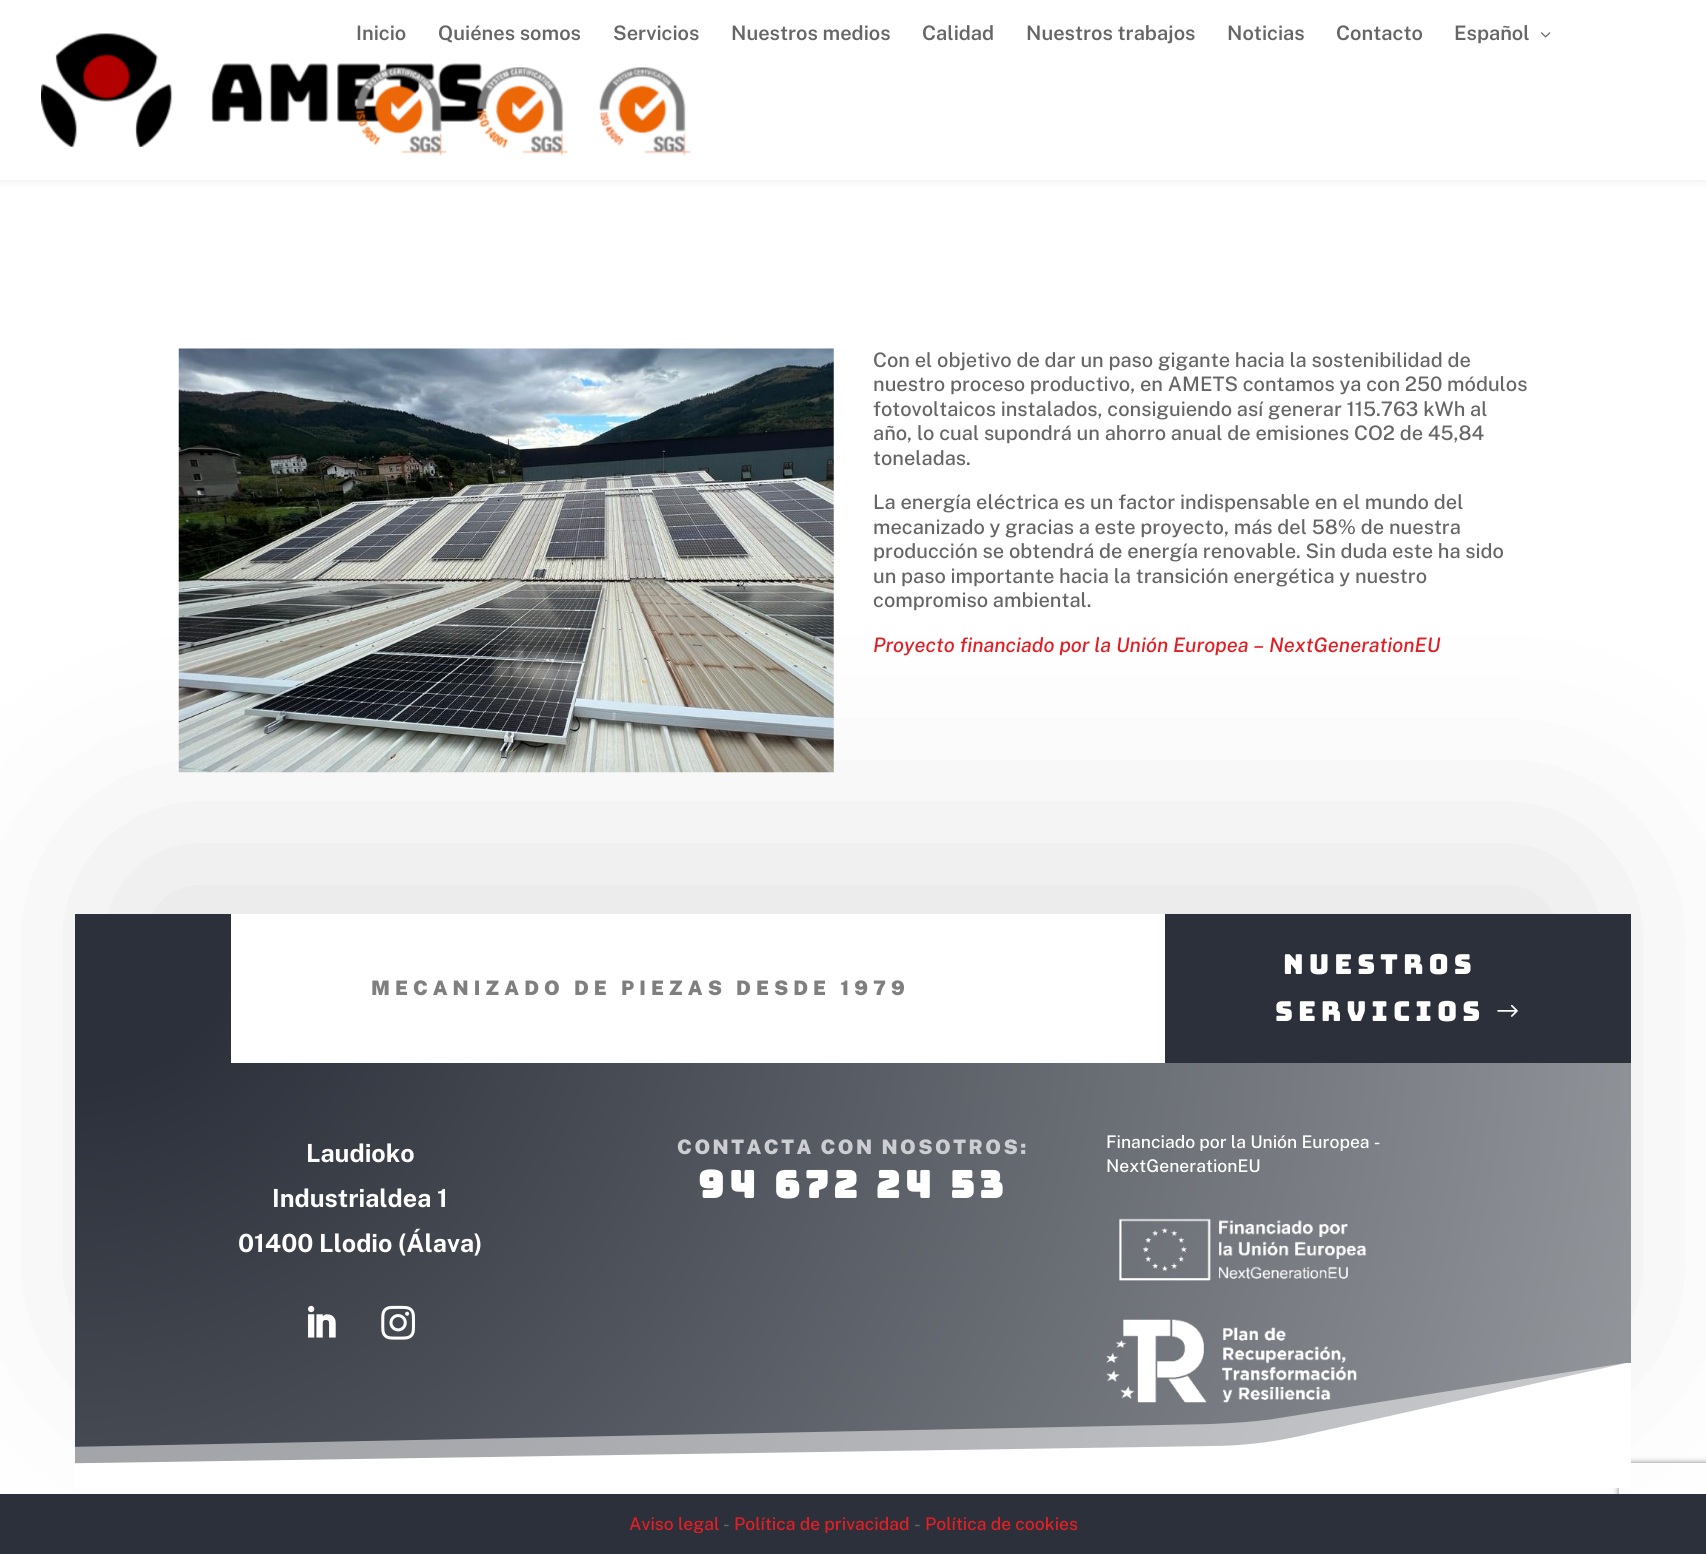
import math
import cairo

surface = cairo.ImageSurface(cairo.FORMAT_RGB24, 1706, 1554)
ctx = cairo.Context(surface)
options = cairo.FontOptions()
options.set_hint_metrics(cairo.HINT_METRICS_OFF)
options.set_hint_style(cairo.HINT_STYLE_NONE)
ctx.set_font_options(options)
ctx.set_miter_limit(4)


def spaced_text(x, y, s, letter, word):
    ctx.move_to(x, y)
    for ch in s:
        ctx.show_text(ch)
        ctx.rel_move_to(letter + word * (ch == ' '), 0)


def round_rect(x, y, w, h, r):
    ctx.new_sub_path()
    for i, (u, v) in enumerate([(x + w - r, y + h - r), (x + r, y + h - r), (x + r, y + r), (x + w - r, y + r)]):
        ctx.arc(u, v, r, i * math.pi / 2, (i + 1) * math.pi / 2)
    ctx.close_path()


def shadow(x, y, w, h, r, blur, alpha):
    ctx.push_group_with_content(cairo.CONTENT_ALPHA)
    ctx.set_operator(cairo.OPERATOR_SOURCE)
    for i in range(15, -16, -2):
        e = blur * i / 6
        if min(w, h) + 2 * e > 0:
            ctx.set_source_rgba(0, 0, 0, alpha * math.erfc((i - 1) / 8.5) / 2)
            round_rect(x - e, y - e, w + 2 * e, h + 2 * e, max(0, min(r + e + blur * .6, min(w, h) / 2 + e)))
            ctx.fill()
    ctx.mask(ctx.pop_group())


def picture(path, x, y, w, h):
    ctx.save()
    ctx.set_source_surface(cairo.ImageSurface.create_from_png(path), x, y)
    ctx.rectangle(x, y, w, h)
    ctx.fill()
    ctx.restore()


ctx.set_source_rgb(1, 1, 1)
ctx.paint()
ctx.set_source_rgb(0, 0, 0)
shadow(0, 0, 1706, 180, 0, 4.5, 0.1)
ctx.set_source_rgb(1, 1, 1)
ctx.rectangle(0, 0, 1706, 180)
ctx.fill()
picture("img1.png", 41, 33, 444, 114)
ctx.select_font_face("Public Sans SemiBold")
ctx.set_font_size(20)
ctx.set_source_rgb(0.4, 0.4, 0.4)
ctx.move_to(356, 40)
ctx.show_text("Inicio")
ctx.move_to(438, 40)
ctx.show_text("Quiénes somos")
ctx.move_to(613, 40)
ctx.show_text("Servicios")
ctx.move_to(731, 40)
ctx.show_text("Nuestros medios")
ctx.move_to(922, 40)
ctx.show_text("Calidad")
ctx.move_to(1026, 40)
ctx.show_text("Nuestros trabajos")
ctx.move_to(1227, 40)
ctx.show_text("Noticias")
ctx.move_to(1336, 40)
ctx.show_text("Contacto")
ctx.move_to(1454, 40)
ctx.show_text("Español")
picture("img2.png", 1541, 32, 10, 6)
picture("img3.png", 356, 67, 91, 89)
picture("img4.png", 477, 67, 91, 89)
picture("img5.png", 599, 67, 92, 89)
picture("img6.png", 178, 348, 656, 425)
ctx.select_font_face("Public Sans Medium")
ctx.move_to(873, 367)
ctx.show_text("Con el objetivo de dar un paso gigante hacia la sostenibilidad de")
ctx.move_to(873, 391)
ctx.show_text("nuestro proceso productivo, en AMETS contamos ya con 250 módulos")
ctx.move_to(873, 416)
ctx.show_text("fotovoltaicos instalados, consiguiendo así generar 115.763 kWh al")
ctx.move_to(873, 440)
ctx.show_text("año, lo cual supondrá un ahorro anual de emisiones CO2 de 45,84")
ctx.move_to(873, 465)
ctx.show_text("toneladas.")
ctx.move_to(873, 509)
ctx.show_text("La energía eléctrica es un factor indispensable en el mundo del")
ctx.move_to(873, 534)
ctx.show_text("mecanizado y gracias a este proyecto, más del 58% de nuestra")
ctx.move_to(873, 558)
ctx.show_text("producción se obtendrá de energía renovable. Sin duda este ha sido")
ctx.move_to(873, 583)
ctx.show_text("un paso importante hacia la transición energética y nuestro")
ctx.move_to(873, 607)
ctx.show_text("compromiso ambiental.")
ctx.select_font_face("Public Sans Medium", cairo.FONT_SLANT_ITALIC)
ctx.set_source_rgb(0.89, 0.118, 0.141)
ctx.move_to(873, 652)
ctx.show_text("Proyecto financiado por la Unión Europea – NextGenerationEU")
ctx.save()
ctx.set_fill_rule(cairo.FILL_RULE_EVEN_ODD)
ctx.new_path()
ctx.move_to(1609, 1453)
ctx.line_to(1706, 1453)
ctx.line_to(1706, 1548)
ctx.line_to(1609, 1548)
ctx.close_path()
ctx.move_to(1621.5, 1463)
ctx.line_to(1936.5, 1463)
ctx.curve_to(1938, 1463, 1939, 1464, 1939, 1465.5)
ctx.line_to(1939, 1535.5)
ctx.curve_to(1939, 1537, 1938, 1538, 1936.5, 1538)
ctx.line_to(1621.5, 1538)
ctx.curve_to(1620, 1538, 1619, 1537, 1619, 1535.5)
ctx.line_to(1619, 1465.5)
ctx.curve_to(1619, 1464, 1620, 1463, 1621.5, 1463)
ctx.close_path()
ctx.clip()
ctx.set_source_rgb(0.502, 0.502, 0.502)
shadow(1619, 1463, 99, 75, 2.5, 3, 1)
ctx.restore()
ctx.set_source_rgb(0.169, 0.188, 0.227)
ctx.rectangle(0, 1494, 1706, 60)
ctx.fill()
ctx.set_source_rgb(0, 0, 0)
shadow(125, 864, 1456, 474, 0, 125, 0.12)
gradient = cairo.RadialGradient(75, 914, 0, 75, 914, 1659)
gradient.add_color_stop_rgba(0.1, 0.169, 0.188, 0.227, 1)
gradient.add_color_stop_rgba(1, 0.584, 0.596, 0.616, 1)
ctx.set_source(gradient)
ctx.rectangle(75, 914, 1556, 550)
ctx.fill()
ctx.set_source_rgb(1, 1, 1)
ctx.rectangle(231, 914, 934, 149)
ctx.fill()
ctx.select_font_face("Public Sans Black")
ctx.set_source_rgb(0.498, 0.498, 0.498)
spaced_text(371, 995, "MECANIZADO DE PIEZAS DESDE 1979", 5, 0)
ctx.set_source_rgb(0.169, 0.188, 0.227)
ctx.rectangle(1165, 914, 466, 149)
ctx.fill()
ctx.select_font_face("Bungee")
ctx.set_font_size(27.5)
ctx.set_source_rgb(1, 1, 1)
spaced_text(1283, 974, "nuestros", 5, 0)
spaced_text(1275, 1021, "servicios", 5, 0)
picture("img7.png", 1497, 1004, 21, 13)
ctx.select_font_face("Public Sans", cairo.FONT_SLANT_NORMAL, cairo.FONT_WEIGHT_BOLD)
ctx.set_font_size(25)
ctx.move_to(306, 1162)
ctx.show_text("Laudioko")
ctx.move_to(272, 1207)
ctx.show_text("Industrialdea 1")
ctx.move_to(238, 1252)
ctx.show_text("01400 Llodio (Álava)")
picture("img8.png", 308, 1305, 28, 33)
picture("img9.png", 381, 1305, 34, 35)
ctx.select_font_face("Public Sans Black")
ctx.set_font_size(20)
ctx.set_source_rgb(0.804, 0.808, 0.82)
spaced_text(677, 1154, "CONTACTA CON NOSOTROS:", 2.5, 0)
ctx.select_font_face("Bungee", cairo.FONT_SLANT_NORMAL, cairo.FONT_WEIGHT_BOLD)
ctx.set_font_size(37.5)
ctx.set_source_rgb(1, 1, 1)
spaced_text(698, 1198, "94 672 24 53", 5, 0)
ctx.select_font_face("Public Sans Medium")
ctx.set_font_size(17.5)
ctx.move_to(1106, 1148)
ctx.show_text("Financiado por la Unión Europea -")
ctx.move_to(1106, 1172)
ctx.show_text("NextGenerationEU")
picture("img10.png", 1119, 1218, 248, 63)
ctx.save()
ctx.rectangle(75, 1363, 1556, 125)
ctx.clip()
ctx.set_source_rgba(1, 1, 1, 0.5)
ctx.new_path()
ctx.move_to(-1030, 1469)
ctx.line_to(1211, 1424)
ctx.curve_to(1232, 1423, 1253, 1422, 1273, 1419)
ctx.line_to(1631, 1362)
ctx.line_to(1631, 1488)
ctx.line_to(-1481, 1488)
ctx.line_to(-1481, 1362)
ctx.line_to(-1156, 1454)
ctx.curve_to(-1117, 1464, -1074, 1470, -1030, 1469)
ctx.close_path()
ctx.fill()
ctx.set_source_rgb(1, 1, 1)
ctx.new_path()
ctx.move_to(-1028, 1480)
ctx.line_to(1211, 1446)
ctx.curve_to(1242, 1446, 1273, 1442, 1300, 1436)
ctx.line_to(1631, 1362)
ctx.line_to(1631, 1488)
ctx.line_to(-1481, 1488)
ctx.line_to(-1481, 1362)
ctx.line_to(-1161, 1462)
ctx.curve_to(-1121, 1475, -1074, 1481, -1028, 1480)
ctx.close_path()
ctx.fill()
ctx.restore()
picture("img11.png", 1106, 1319, 251, 84)
ctx.set_source_rgb(0.89, 0.118, 0.141)
ctx.move_to(629, 1530)
ctx.show_text("Aviso legal")
ctx.set_source_rgb(0.4, 0.4, 0.4)
ctx.move_to(723, 1530)
ctx.show_text("-")
ctx.set_source_rgb(0.89, 0.118, 0.141)
ctx.move_to(734, 1530)
ctx.show_text("Política de privacidad")
ctx.set_source_rgb(0.4, 0.4, 0.4)
ctx.move_to(914, 1530)
ctx.show_text("-")
ctx.set_source_rgb(0.89, 0.118, 0.141)
ctx.move_to(925, 1530)
ctx.show_text("Política de cookies")
surface.write_to_png("page.png")
